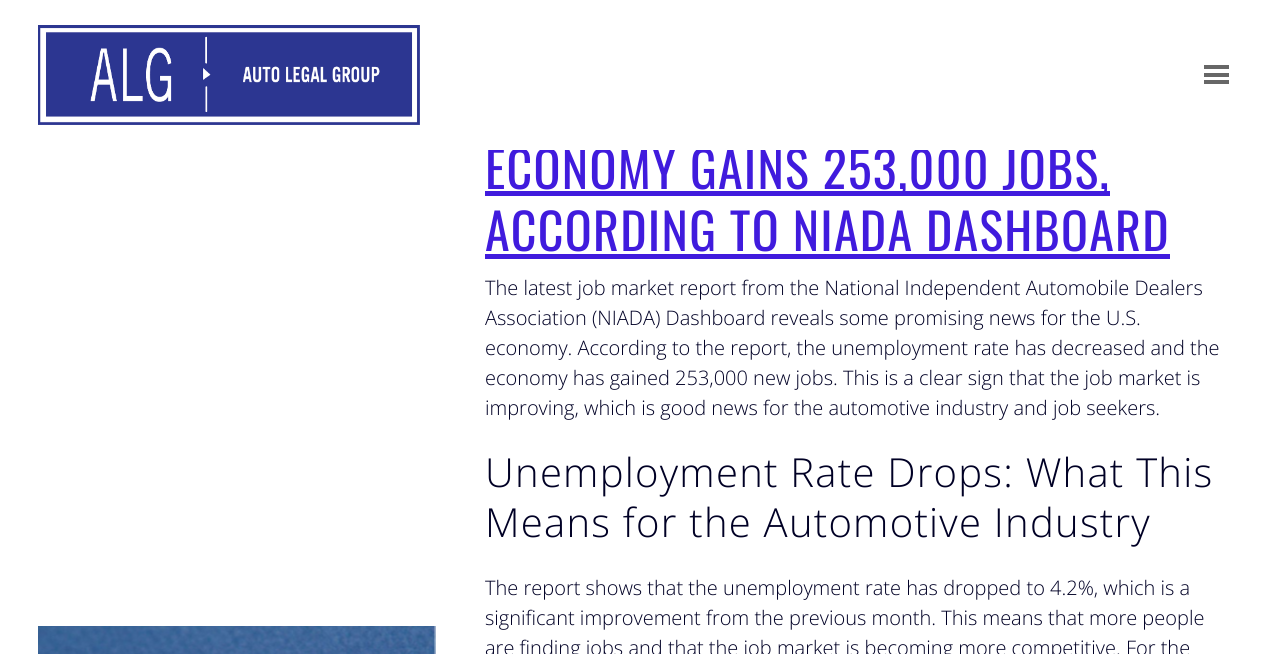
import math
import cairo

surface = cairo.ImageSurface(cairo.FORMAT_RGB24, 1266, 654)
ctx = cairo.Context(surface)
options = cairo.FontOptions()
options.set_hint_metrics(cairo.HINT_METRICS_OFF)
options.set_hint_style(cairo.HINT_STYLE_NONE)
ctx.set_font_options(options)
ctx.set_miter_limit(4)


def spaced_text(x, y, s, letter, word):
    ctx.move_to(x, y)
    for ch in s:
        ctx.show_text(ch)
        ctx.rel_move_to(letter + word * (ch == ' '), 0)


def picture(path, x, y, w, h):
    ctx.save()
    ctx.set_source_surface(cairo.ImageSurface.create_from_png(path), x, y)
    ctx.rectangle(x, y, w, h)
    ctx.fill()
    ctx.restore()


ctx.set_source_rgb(1, 1, 1)
ctx.paint()
ctx.set_source_rgb(0.251, 0.106, 0.867)
ctx.rectangle(485, 191, 625, 5)
ctx.fill()
ctx.select_font_face("Oswald")
ctx.set_font_size(50)
spaced_text(485, 189, "ECONOMY GAINS 253,000 JOBS,", 1.25, 0)
ctx.set_source_rgb(1, 1, 1)
ctx.rectangle(487, 148, 605, 2)
ctx.fill()
picture("img1.png", 38, 25, 382, 100)
ctx.set_source_rgb(0.404, 0.404, 0.404)
ctx.rectangle(1204, 73, 25, 4)
ctx.fill()
ctx.rectangle(1204, 65, 25, 4)
ctx.fill()
ctx.rectangle(1204, 80, 25, 4)
ctx.fill()
picture("img2.png", 38, 626, 398, 28)
ctx.set_source_rgb(0.251, 0.106, 0.867)
spaced_text(485, 251, "ACCORDING TO NIADA DASHBOARD", 1.25, 0)
ctx.rectangle(485, 254, 685, 5)
ctx.fill()
ctx.select_font_face("Open Sans Light")
ctx.set_font_size(20)
ctx.set_source_rgb(0, 0, 0.145)
ctx.move_to(485, 295)
ctx.show_text("The latest job market report from the National Independent Automobile Dealers")
ctx.move_to(485, 325)
ctx.show_text("Association (NIADA) Dashboard reveals some promising news for the U.S.")
ctx.move_to(485, 355)
ctx.show_text("economy. According to the report, the unemployment rate has decreased and the")
ctx.move_to(485, 385)
ctx.show_text("economy has gained 253,000 new jobs. This is a clear sign that the job market is")
ctx.move_to(485, 415)
ctx.show_text("improving, which is good news for the automotive industry and job seekers.")
ctx.set_font_size(40)
spaced_text(485, 487, "Unemployment Rate Drops: What This", 1.25, 0)
spaced_text(485, 537, "Means for the Automotive Industry", 1.25, 0)
ctx.set_font_size(20)
ctx.move_to(485, 595)
ctx.show_text("The report shows that the unemployment rate has dropped to 4.2%, which is a")
ctx.move_to(485, 625)
ctx.show_text("significant improvement from the previous month. This means that more people")
ctx.move_to(485, 655)
ctx.show_text("are finding jobs and that the job market is becoming more competitive. For the")
surface.write_to_png("page.png")
